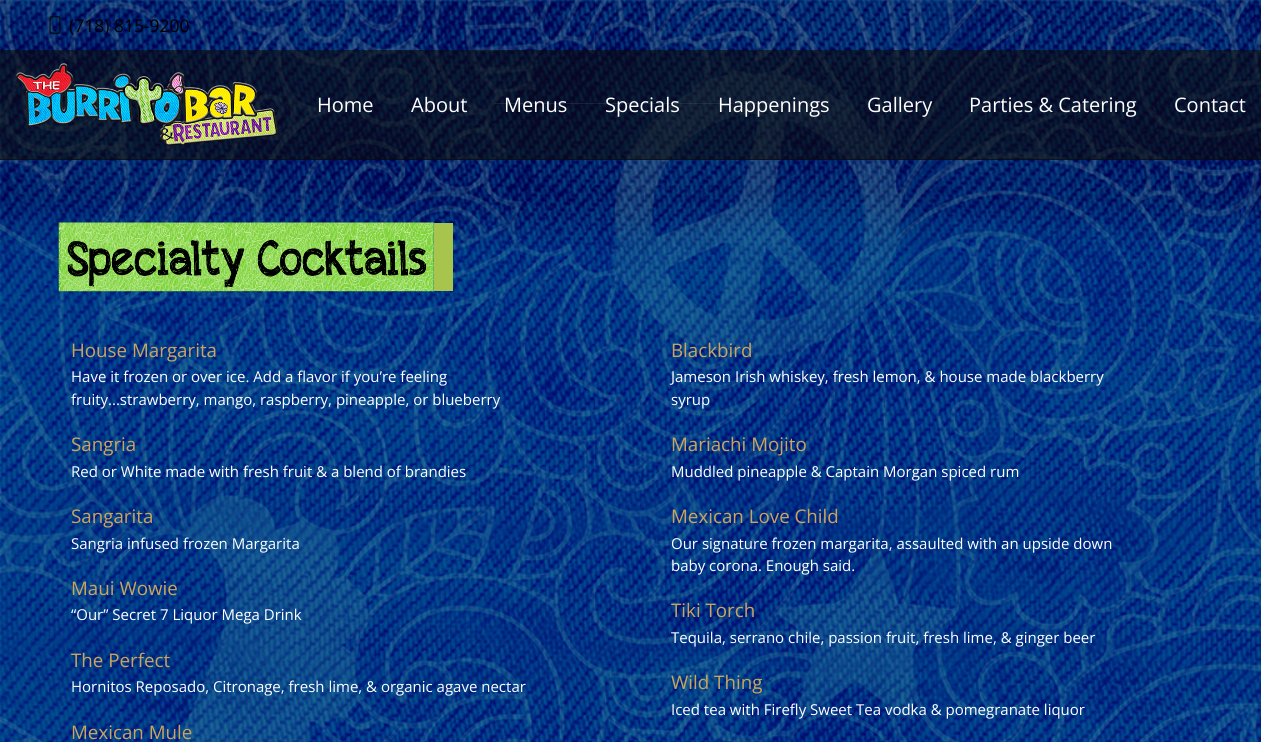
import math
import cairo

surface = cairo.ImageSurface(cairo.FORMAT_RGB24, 1261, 742)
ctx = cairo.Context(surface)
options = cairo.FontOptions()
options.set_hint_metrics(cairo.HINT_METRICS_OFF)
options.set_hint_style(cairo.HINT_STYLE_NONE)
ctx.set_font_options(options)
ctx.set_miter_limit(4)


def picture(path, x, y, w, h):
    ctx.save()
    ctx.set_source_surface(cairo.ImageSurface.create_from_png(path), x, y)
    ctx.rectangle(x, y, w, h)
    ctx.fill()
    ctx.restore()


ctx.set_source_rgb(1, 1, 1)
ctx.paint()
picture("img1.png", 0, 0, 1261, 742)
picture("img2.png", 49, 16, 12, 18)
ctx.select_font_face("Open Sans")
ctx.set_font_size(17.5)
ctx.set_source_rgb(0, 0, 0)
ctx.move_to(69, 32)
ctx.show_text("(718) 815-9200")
ctx.set_source_rgba(1, 1, 1, 0.2)
ctx.rectangle(494, 103, 275, 1)
ctx.fill()
ctx.set_source_rgba(0.047, 0.043, 0.035, 0.6)
ctx.rectangle(0, 50, 1261, 110)
ctx.fill()
ctx.rectangle(0, 159, 1261, 1)
ctx.fill()
picture("img3.png", 15, 63, 263, 83)
ctx.set_font_size(20)
ctx.set_source_rgb(1, 1, 1)
ctx.move_to(317, 112)
ctx.show_text("Home")
ctx.move_to(411, 112)
ctx.show_text("About")
ctx.move_to(504, 112)
ctx.show_text("Menus")
ctx.move_to(605, 112)
ctx.show_text("Specials")
ctx.move_to(718, 112)
ctx.show_text("Happenings")
ctx.move_to(867, 112)
ctx.show_text("Gallery")
ctx.move_to(969, 112)
ctx.show_text("Parties & Catering")
ctx.move_to(1174, 112)
ctx.show_text("Contact")
picture("img4.png", 58, 222, 376, 70)
ctx.set_source_rgb(0.655, 0.769, 0.298)
ctx.rectangle(434, 223, 19, 68)
ctx.fill()
ctx.set_font_size(18.75)
ctx.set_source_rgb(0.804, 0.643, 0.369)
ctx.move_to(71, 357)
ctx.show_text("House Margarita")
ctx.set_font_size(15)
ctx.set_source_rgb(1, 1, 1)
ctx.move_to(71, 382)
ctx.show_text("Have it frozen or over ice. Add a flavor if you’re feeling")
ctx.move_to(71, 405)
ctx.show_text("fruity...strawberry, mango, raspberry, pineapple, or blueberry")
ctx.set_font_size(18.75)
ctx.set_source_rgb(0.804, 0.643, 0.369)
ctx.move_to(71, 451)
ctx.show_text("Sangria")
ctx.set_font_size(15)
ctx.set_source_rgb(1, 1, 1)
ctx.move_to(71, 477)
ctx.show_text("Red or White made with fresh fruit & a blend of brandies")
ctx.set_font_size(18.75)
ctx.set_source_rgb(0.804, 0.643, 0.369)
ctx.move_to(71, 523)
ctx.show_text("Sangarita")
ctx.set_font_size(15)
ctx.set_source_rgb(1, 1, 1)
ctx.move_to(71, 549)
ctx.show_text("Sangria infused frozen Margarita")
ctx.set_font_size(18.75)
ctx.set_source_rgb(0.804, 0.643, 0.369)
ctx.move_to(71, 595)
ctx.show_text("Maui Wowie")
ctx.set_font_size(15)
ctx.set_source_rgb(1, 1, 1)
ctx.move_to(71, 620)
ctx.show_text("“Our” Secret 7 Liquor Mega Drink")
ctx.set_font_size(18.75)
ctx.set_source_rgb(0.804, 0.643, 0.369)
ctx.move_to(71, 667)
ctx.show_text("The Perfect")
ctx.set_font_size(15)
ctx.set_source_rgb(1, 1, 1)
ctx.move_to(71, 692)
ctx.show_text("Hornitos Reposado, Citronage, fresh lime, & organic agave nectar")
ctx.set_font_size(18.75)
ctx.set_source_rgb(0.804, 0.643, 0.369)
ctx.move_to(71, 739)
ctx.show_text("Mexican Mule")
ctx.move_to(671, 357)
ctx.show_text("Blackbird")
ctx.set_font_size(15)
ctx.set_source_rgb(1, 1, 1)
ctx.move_to(671, 382)
ctx.show_text("Jameson Irish whiskey, fresh lemon, & house made blackberry")
ctx.move_to(671, 405)
ctx.show_text("syrup")
ctx.set_font_size(18.75)
ctx.set_source_rgb(0.804, 0.643, 0.369)
ctx.move_to(671, 451)
ctx.show_text("Mariachi Mojito")
ctx.set_font_size(15)
ctx.set_source_rgb(1, 1, 1)
ctx.move_to(671, 477)
ctx.show_text("Muddled pineapple & Captain Morgan spiced rum")
ctx.set_font_size(18.75)
ctx.set_source_rgb(0.804, 0.643, 0.369)
ctx.move_to(671, 523)
ctx.show_text("Mexican Love Child")
ctx.set_font_size(15)
ctx.set_source_rgb(1, 1, 1)
ctx.move_to(671, 549)
ctx.show_text("Our signature frozen margarita, assaulted with an upside down")
ctx.move_to(671, 571)
ctx.show_text("baby corona. Enough said.")
ctx.set_font_size(18.75)
ctx.set_source_rgb(0.804, 0.643, 0.369)
ctx.move_to(671, 617)
ctx.show_text("Tiki Torch")
ctx.set_font_size(15)
ctx.set_source_rgb(1, 1, 1)
ctx.move_to(671, 643)
ctx.show_text("Tequila, serrano chile, passion fruit, fresh lime, & ginger beer")
ctx.set_font_size(18.75)
ctx.set_source_rgb(0.804, 0.643, 0.369)
ctx.move_to(671, 689)
ctx.show_text("Wild Thing")
ctx.set_font_size(15)
ctx.set_source_rgb(1, 1, 1)
ctx.move_to(671, 715)
ctx.show_text("Iced tea with Firefly Sweet Tea vodka & pomegranate liquor")
surface.write_to_png("page.png")
